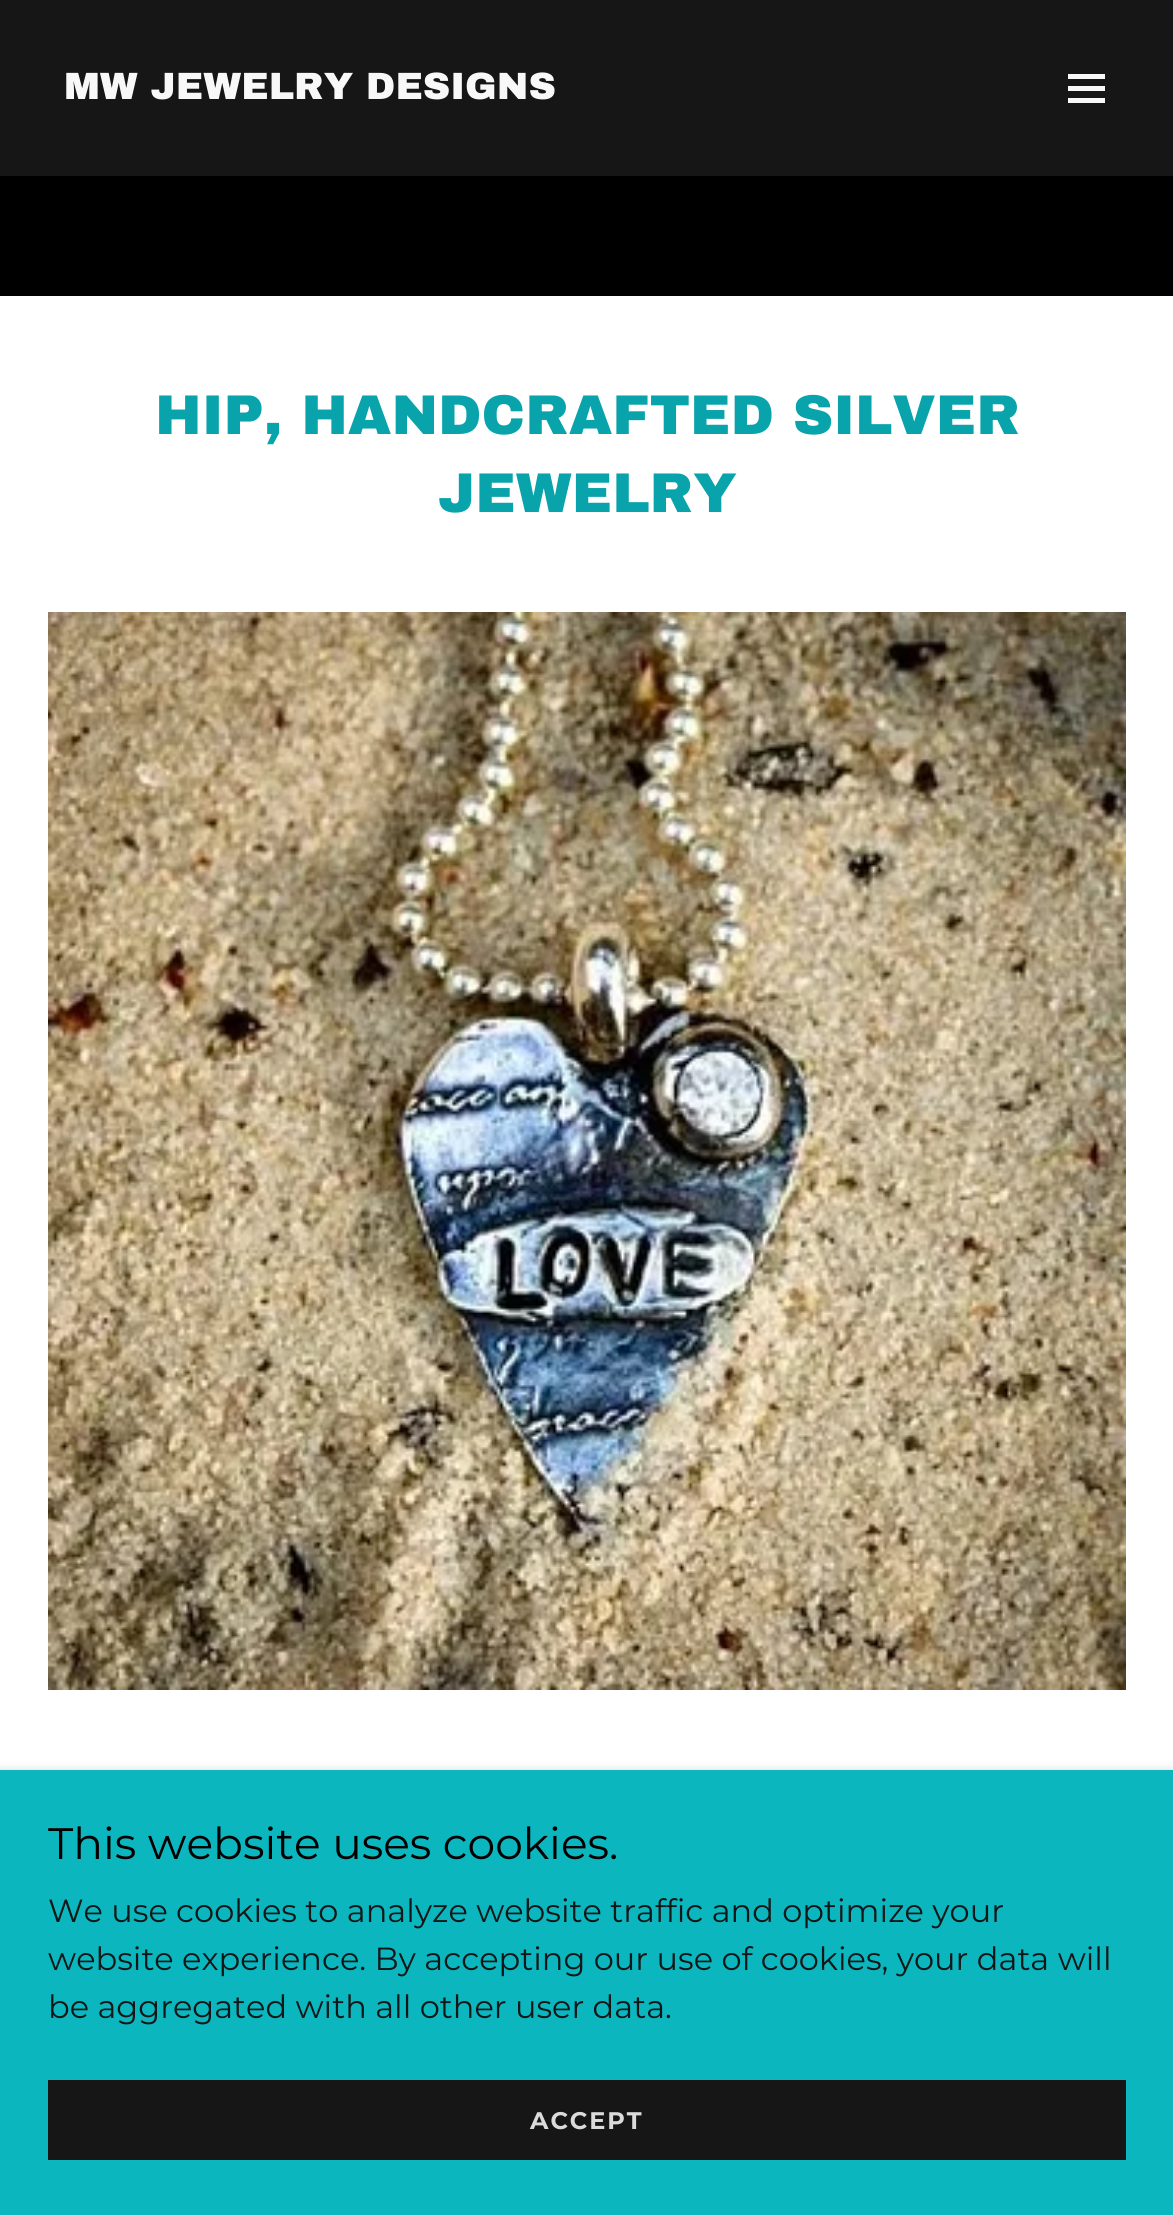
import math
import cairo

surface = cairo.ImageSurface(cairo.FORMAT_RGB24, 1173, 2215)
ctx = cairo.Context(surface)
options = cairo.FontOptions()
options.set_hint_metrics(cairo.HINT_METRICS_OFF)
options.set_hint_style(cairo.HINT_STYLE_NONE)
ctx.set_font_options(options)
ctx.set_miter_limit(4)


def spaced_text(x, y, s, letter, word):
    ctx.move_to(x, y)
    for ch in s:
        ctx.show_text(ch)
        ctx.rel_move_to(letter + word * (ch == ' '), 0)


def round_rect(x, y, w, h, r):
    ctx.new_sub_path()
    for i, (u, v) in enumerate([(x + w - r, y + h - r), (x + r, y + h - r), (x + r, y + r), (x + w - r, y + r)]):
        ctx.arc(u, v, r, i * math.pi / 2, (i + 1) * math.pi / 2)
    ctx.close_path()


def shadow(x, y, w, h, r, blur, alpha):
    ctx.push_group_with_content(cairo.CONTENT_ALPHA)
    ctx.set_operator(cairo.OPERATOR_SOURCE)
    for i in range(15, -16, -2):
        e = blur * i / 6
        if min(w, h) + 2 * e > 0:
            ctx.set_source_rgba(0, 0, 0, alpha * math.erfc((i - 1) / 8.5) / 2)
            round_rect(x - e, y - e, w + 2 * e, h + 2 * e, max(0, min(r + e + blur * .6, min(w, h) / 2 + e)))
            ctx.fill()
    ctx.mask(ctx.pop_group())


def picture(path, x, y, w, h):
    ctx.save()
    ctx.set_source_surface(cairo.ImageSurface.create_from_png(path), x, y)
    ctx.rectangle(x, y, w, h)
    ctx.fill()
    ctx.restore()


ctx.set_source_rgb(1, 1, 1)
ctx.paint()
ctx.set_source_rgb(0.086, 0.086, 0.086)
ctx.rectangle(0, 0, 1173, 176)
ctx.fill()
ctx.select_font_face("Archivo Black Black")
ctx.set_font_size(38)
ctx.set_source_rgb(0.969, 0.969, 0.969)
ctx.move_to(64, 99)
ctx.show_text("MW JEWELRY DESIGNS")
ctx.rectangle(1068, 74, 37, 5)
ctx.fill()
ctx.rectangle(1068, 86, 37, 5)
ctx.fill()
ctx.rectangle(1068, 98, 37, 5)
ctx.fill()
ctx.set_source_rgb(0, 0, 0)
ctx.rectangle(0, 176, 1173, 120)
ctx.fill()
ctx.set_font_size(56)
ctx.set_source_rgb(0.039, 0.639, 0.671)
ctx.move_to(155, 434)
ctx.show_text("HIP, HANDCRAFTED SILVER")
ctx.move_to(438, 512)
ctx.show_text("JEWELRY")
picture("img1.png", 48, 612, 1078, 1078)
ctx.set_source_rgb(0, 0, 0)
shadow(0, 1774, 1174, 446, 0, 6, 0.3)
ctx.set_source_rgb(0.043, 0.714, 0.749)
ctx.rectangle(0, 1770, 1173, 445)
ctx.fill()
ctx.select_font_face("Montserrat")
ctx.set_font_size(44)
ctx.set_source_rgb(0, 0, 0)
ctx.move_to(48, 1859)
ctx.show_text("This website uses cookies.")
ctx.set_font_size(32)
ctx.set_source_rgb(0.082, 0.09, 0.09)
ctx.move_to(48, 1922)
ctx.show_text("We use cookies to analyze website traffic and optimize your")
ctx.move_to(48, 1970)
ctx.show_text("website experience. By accepting our use of cookies, your data will")
ctx.move_to(48, 2018)
ctx.show_text("be aggregated with all other user data.")
ctx.set_source_rgb(0.086, 0.086, 0.086)
ctx.rectangle(48, 2080, 1078, 80)
ctx.fill()
ctx.select_font_face("Montserrat", cairo.FONT_SLANT_NORMAL, cairo.FONT_WEIGHT_BOLD)
ctx.set_font_size(24)
ctx.set_source_rgb(0.859, 0.859, 0.859)
spaced_text(530, 2129, "ACCEPT", 2, 0)
surface.write_to_png("page.png")
